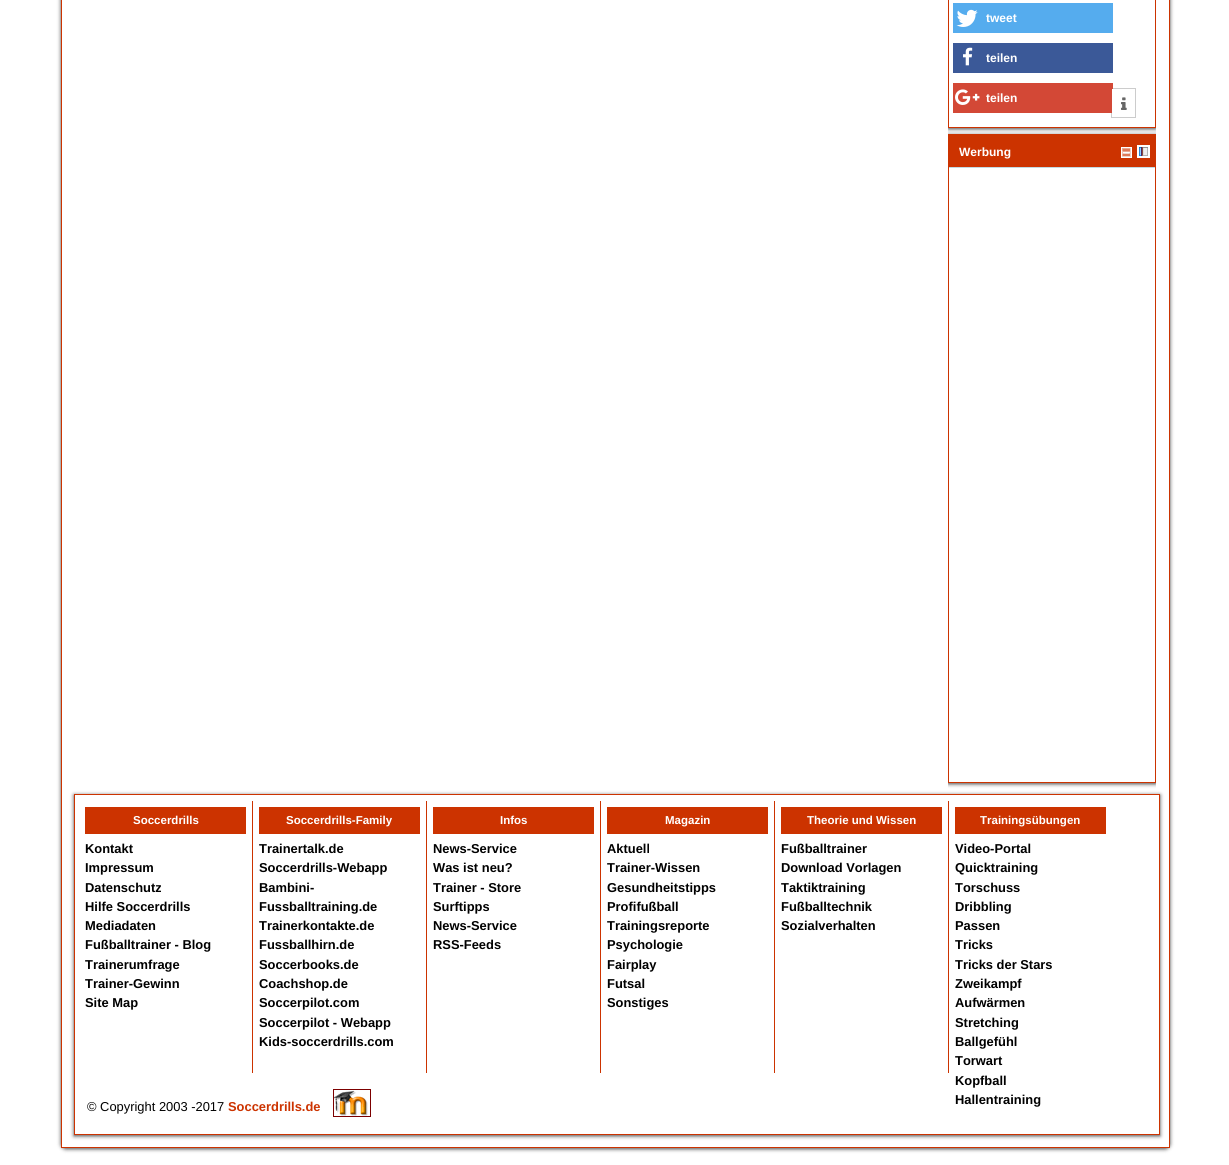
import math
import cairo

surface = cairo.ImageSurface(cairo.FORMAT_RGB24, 1229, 1165)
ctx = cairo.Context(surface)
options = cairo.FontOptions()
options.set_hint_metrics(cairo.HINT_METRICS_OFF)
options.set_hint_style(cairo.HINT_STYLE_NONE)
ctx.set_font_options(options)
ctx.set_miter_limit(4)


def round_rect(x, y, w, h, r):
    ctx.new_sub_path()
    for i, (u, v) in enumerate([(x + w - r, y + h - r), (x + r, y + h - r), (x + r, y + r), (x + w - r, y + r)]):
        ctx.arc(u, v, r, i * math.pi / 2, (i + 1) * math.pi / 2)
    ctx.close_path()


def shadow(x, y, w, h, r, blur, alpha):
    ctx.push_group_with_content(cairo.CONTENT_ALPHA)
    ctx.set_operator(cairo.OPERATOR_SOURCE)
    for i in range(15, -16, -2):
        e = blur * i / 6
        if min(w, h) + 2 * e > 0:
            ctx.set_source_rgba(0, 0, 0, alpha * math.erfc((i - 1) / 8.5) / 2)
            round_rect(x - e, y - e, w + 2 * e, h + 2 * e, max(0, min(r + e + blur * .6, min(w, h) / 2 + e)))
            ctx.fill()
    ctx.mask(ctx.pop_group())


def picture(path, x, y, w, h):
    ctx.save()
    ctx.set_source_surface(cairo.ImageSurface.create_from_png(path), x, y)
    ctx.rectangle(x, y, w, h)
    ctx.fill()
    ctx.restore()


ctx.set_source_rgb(1, 1, 1)
ctx.paint()
ctx.save()
ctx.set_fill_rule(cairo.FILL_RULE_EVEN_ODD)
ctx.new_path()
ctx.move_to(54, 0)
ctx.line_to(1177, 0)
ctx.line_to(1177, 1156)
ctx.line_to(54, 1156)
ctx.close_path()
ctx.move_to(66, -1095)
ctx.line_to(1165, -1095)
ctx.curve_to(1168, -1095, 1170, -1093, 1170, -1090)
ctx.line_to(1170, 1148)
ctx.line_to(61, 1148)
ctx.line_to(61, -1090)
ctx.curve_to(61, -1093, 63, -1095, 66, -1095)
ctx.close_path()
ctx.clip()
ctx.set_source_rgb(0.267, 0.267, 0.267)
shadow(61, -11, 1109, 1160, 5, 2, 1)
ctx.restore()
ctx.rectangle(61.5, -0.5, 1108, 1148)
ctx.set_source_rgb(0.8, 0.2, 0)
ctx.set_line_width(1)
ctx.stroke()
ctx.save()
ctx.rectangle(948, 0, 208, 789)
ctx.clip()
ctx.rectangle(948, 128, 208, 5)
ctx.clip()
ctx.set_source_rgb(0.267, 0.267, 0.267)
shadow(948, -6, 208, 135, 0, 2, 1)
ctx.restore()
ctx.rectangle(948.5, -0.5, 207, 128)
ctx.stroke()
ctx.set_source_rgb(0.333, 0.675, 0.933)
ctx.rectangle(953, 3, 160, 30)
ctx.fill()
picture("img1.png", 956, 9, 22, 18)
ctx.select_font_face("Liberation Sans", cairo.FONT_SLANT_NORMAL, cairo.FONT_WEIGHT_BOLD)
ctx.set_font_size(12)
ctx.set_source_rgb(1, 1, 1)
ctx.move_to(986, 22)
ctx.show_text("tweet")
ctx.set_source_rgb(0.231, 0.349, 0.596)
ctx.rectangle(953, 43, 160, 30)
ctx.fill()
picture("img2.png", 963, 47, 10, 19)
ctx.set_source_rgb(1, 1, 1)
ctx.move_to(986, 62)
ctx.show_text("teilen")
ctx.rectangle(1111.5, 88.5, 24, 29)
ctx.set_source_rgb(0.8, 0.8, 0.8)
ctx.stroke()
ctx.set_source_rgb(0.827, 0.282, 0.212)
ctx.rectangle(953, 83, 160, 30)
ctx.fill()
picture("img3.png", 955, 89, 25, 16)
ctx.set_source_rgb(1, 1, 1)
ctx.move_to(986, 102)
ctx.show_text("teilen")
ctx.rectangle(1112, 89, 1, 24)
ctx.fill()
picture("img4.png", 1121, 97, 6, 13)
ctx.save()
ctx.rectangle(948, 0, 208, 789)
ctx.clip()
ctx.set_fill_rule(cairo.FILL_RULE_EVEN_ODD)
ctx.new_path()
ctx.move_to(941, 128)
ctx.line_to(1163, 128)
ctx.line_to(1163, 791)
ctx.line_to(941, 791)
ctx.close_path()
ctx.move_to(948, 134)
ctx.line_to(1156, 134)
ctx.line_to(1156, 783)
ctx.line_to(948, 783)
ctx.close_path()
ctx.clip()
ctx.set_source_rgb(0.267, 0.267, 0.267)
shadow(948, 135, 208, 649, 0, 2, 1)
ctx.restore()
ctx.rectangle(948.5, 134.5, 207, 648)
ctx.set_source_rgb(0.8, 0.2, 0)
ctx.stroke()
ctx.rectangle(949, 135, 206, 32)
ctx.fill()
ctx.set_source_rgb(0.765, 0.851, 0.882)
ctx.rectangle(949, 167, 206, 1)
ctx.fill()
ctx.set_source_rgb(1, 1, 1)
ctx.move_to(959, 156)
ctx.show_text("Werbung")
picture("img5.png", 1121, 147, 11, 11)
ctx.rectangle(1137, 145, 13, 13)
ctx.fill()
picture("img6.png", 1139, 147, 9, 9)
ctx.save()
ctx.set_fill_rule(cairo.FILL_RULE_EVEN_ODD)
ctx.new_path()
ctx.move_to(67, 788)
ctx.line_to(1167, 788)
ctx.line_to(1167, 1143)
ctx.line_to(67, 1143)
ctx.close_path()
ctx.move_to(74, 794)
ctx.line_to(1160, 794)
ctx.line_to(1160, 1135)
ctx.line_to(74, 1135)
ctx.close_path()
ctx.clip()
ctx.set_source_rgb(0.267, 0.267, 0.267)
shadow(74, 795, 1086, 341, 0, 2, 1)
ctx.restore()
ctx.rectangle(74.5, 794.5, 1085, 340)
ctx.set_source_rgb(0.8, 0.2, 0)
ctx.stroke()
ctx.rectangle(252, 801, 1, 272)
ctx.fill()
ctx.rectangle(85, 807, 161, 27)
ctx.fill()
ctx.set_font_size(11.5)
ctx.set_source_rgb(1, 1, 1)
ctx.move_to(133, 824)
ctx.show_text("Soccerdrills")
ctx.set_font_size(12.9)
ctx.set_source_rgb(0, 0, 0)
ctx.move_to(85, 853)
ctx.show_text("Kontakt")
ctx.move_to(85, 872)
ctx.show_text("Impressum")
ctx.move_to(85, 892)
ctx.show_text("Datenschutz")
ctx.move_to(85, 911)
ctx.show_text("Hilfe Soccerdrills")
ctx.move_to(85, 930)
ctx.show_text("Mediadaten")
ctx.move_to(85, 949)
ctx.show_text("Fußballtrainer - Blog")
ctx.move_to(85, 969)
ctx.show_text("Trainerumfrage")
ctx.move_to(85, 988)
ctx.show_text("Trainer-Gewinn")
ctx.move_to(85, 1007)
ctx.show_text("Site Map")
ctx.set_source_rgb(0.8, 0.2, 0)
ctx.rectangle(426, 801, 1, 272)
ctx.fill()
ctx.rectangle(259, 807, 161, 27)
ctx.fill()
ctx.set_font_size(11.5)
ctx.set_source_rgb(1, 1, 1)
ctx.move_to(286, 824)
ctx.show_text("Soccerdrills-Family")
ctx.set_font_size(12.9)
ctx.set_source_rgb(0, 0, 0)
ctx.move_to(259, 853)
ctx.show_text("Trainertalk.de")
ctx.move_to(259, 872)
ctx.show_text("Soccerdrills-Webapp")
ctx.move_to(259, 892)
ctx.show_text("Bambini-")
ctx.move_to(259, 911)
ctx.show_text("Fussballtraining.de")
ctx.move_to(259, 930)
ctx.show_text("Trainerkontakte.de")
ctx.move_to(259, 949)
ctx.show_text("Fussballhirn.de")
ctx.move_to(259, 969)
ctx.show_text("Soccerbooks.de")
ctx.move_to(259, 988)
ctx.show_text("Coachshop.de")
ctx.move_to(259, 1007)
ctx.show_text("Soccerpilot.com")
ctx.move_to(259, 1027)
ctx.show_text("Soccerpilot - Webapp")
ctx.move_to(259, 1046)
ctx.show_text("Kids-soccerdrills.com")
ctx.set_source_rgb(0.8, 0.2, 0)
ctx.rectangle(600, 801, 1, 272)
ctx.fill()
ctx.rectangle(433, 807, 161, 27)
ctx.fill()
ctx.set_font_size(11.5)
ctx.set_source_rgb(1, 1, 1)
ctx.move_to(500, 824)
ctx.show_text("Infos")
ctx.set_font_size(12.9)
ctx.set_source_rgb(0, 0, 0)
ctx.move_to(433, 853)
ctx.show_text("News-Service")
ctx.move_to(433, 872)
ctx.show_text("Was ist neu?")
ctx.move_to(433, 892)
ctx.show_text("Trainer - Store")
ctx.move_to(433, 911)
ctx.show_text("Surftipps")
ctx.move_to(433, 930)
ctx.show_text("News-Service")
ctx.move_to(433, 949)
ctx.show_text("RSS-Feeds")
ctx.set_source_rgb(0.8, 0.2, 0)
ctx.rectangle(774, 801, 1, 272)
ctx.fill()
ctx.rectangle(607, 807, 161, 27)
ctx.fill()
ctx.set_font_size(11.5)
ctx.set_source_rgb(1, 1, 1)
ctx.move_to(665, 824)
ctx.show_text("Magazin")
ctx.set_font_size(12.9)
ctx.set_source_rgb(0, 0, 0)
ctx.move_to(607, 853)
ctx.show_text("Aktuell")
ctx.move_to(607, 872)
ctx.show_text("Trainer-Wissen")
ctx.move_to(607, 892)
ctx.show_text("Gesundheitstipps")
ctx.move_to(607, 911)
ctx.show_text("Profifußball")
ctx.move_to(607, 930)
ctx.show_text("Trainingsreporte")
ctx.move_to(607, 949)
ctx.show_text("Psychologie")
ctx.move_to(607, 969)
ctx.show_text("Fairplay")
ctx.move_to(607, 988)
ctx.show_text("Futsal")
ctx.move_to(607, 1007)
ctx.show_text("Sonstiges")
ctx.set_source_rgb(0.8, 0.2, 0)
ctx.rectangle(948, 801, 1, 272)
ctx.fill()
ctx.rectangle(781, 807, 161, 27)
ctx.fill()
ctx.set_font_size(11.5)
ctx.set_source_rgb(1, 1, 1)
ctx.move_to(807, 824)
ctx.show_text("Theorie und Wissen")
ctx.set_font_size(12.9)
ctx.set_source_rgb(0, 0, 0)
ctx.move_to(781, 853)
ctx.show_text("Fußballtrainer")
ctx.move_to(781, 872)
ctx.show_text("Download Vorlagen")
ctx.move_to(781, 892)
ctx.show_text("Taktiktraining")
ctx.move_to(781, 911)
ctx.show_text("Fußballtechnik")
ctx.move_to(781, 930)
ctx.show_text("Sozialverhalten")
ctx.set_source_rgb(0.8, 0.2, 0)
ctx.rectangle(955, 807, 151, 27)
ctx.fill()
ctx.set_font_size(11.5)
ctx.set_source_rgb(1, 1, 1)
ctx.move_to(980, 824)
ctx.show_text("Trainingsübungen")
ctx.set_font_size(12.9)
ctx.set_source_rgb(0, 0, 0)
ctx.move_to(955, 853)
ctx.show_text("Video-Portal")
ctx.move_to(955, 872)
ctx.show_text("Quicktraining")
ctx.move_to(955, 892)
ctx.show_text("Torschuss")
ctx.move_to(955, 911)
ctx.show_text("Dribbling")
ctx.move_to(955, 930)
ctx.show_text("Passen")
ctx.move_to(955, 949)
ctx.show_text("Tricks")
ctx.move_to(955, 969)
ctx.show_text("Tricks der Stars")
ctx.move_to(955, 988)
ctx.show_text("Zweikampf")
ctx.move_to(955, 1007)
ctx.show_text("Aufwärmen")
ctx.move_to(955, 1027)
ctx.show_text("Stretching")
ctx.move_to(955, 1046)
ctx.show_text("Ballgefühl")
ctx.move_to(955, 1065)
ctx.show_text("Torwart")
ctx.move_to(955, 1085)
ctx.show_text("Kopfball")
ctx.move_to(955, 1104)
ctx.show_text("Hallentraining")
ctx.select_font_face("Liberation Sans")
ctx.move_to(87, 1111)
ctx.show_text("© Copyright 2003 -2017")
ctx.select_font_face("Liberation Sans", cairo.FONT_SLANT_NORMAL, cairo.FONT_WEIGHT_BOLD)
ctx.set_source_rgb(0.8, 0.2, 0)
ctx.move_to(228, 1111)
ctx.show_text("Soccerdrills.de")
picture("img7.png", 333, 1089, 38, 28)
surface.write_to_png("page.png")
